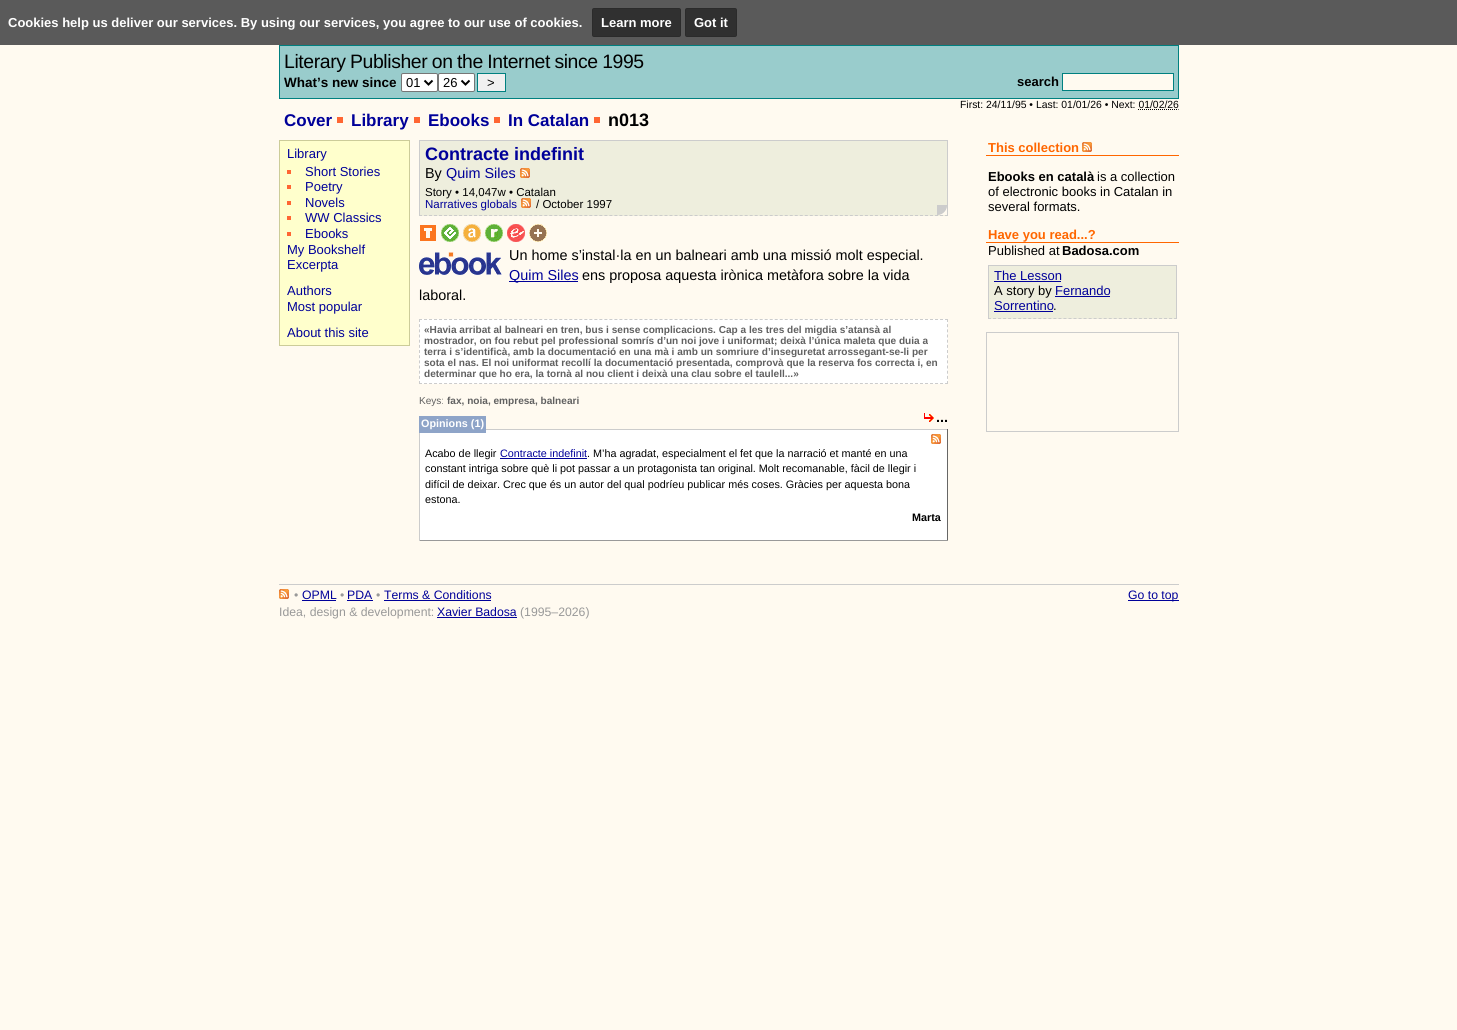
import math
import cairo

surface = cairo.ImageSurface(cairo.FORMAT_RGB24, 1457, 1030)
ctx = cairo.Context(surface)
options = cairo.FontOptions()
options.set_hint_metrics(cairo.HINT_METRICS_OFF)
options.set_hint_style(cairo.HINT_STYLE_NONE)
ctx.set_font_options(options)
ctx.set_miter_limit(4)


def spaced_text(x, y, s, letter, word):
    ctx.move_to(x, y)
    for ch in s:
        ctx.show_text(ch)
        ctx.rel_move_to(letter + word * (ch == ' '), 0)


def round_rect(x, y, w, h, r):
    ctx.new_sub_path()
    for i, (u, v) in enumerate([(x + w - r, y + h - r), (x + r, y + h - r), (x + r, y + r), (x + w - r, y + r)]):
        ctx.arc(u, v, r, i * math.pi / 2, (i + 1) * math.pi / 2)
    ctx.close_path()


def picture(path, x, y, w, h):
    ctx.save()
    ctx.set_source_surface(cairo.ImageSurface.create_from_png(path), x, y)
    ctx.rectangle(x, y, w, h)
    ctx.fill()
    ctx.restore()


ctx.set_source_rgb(1, 0.98, 0.941)
ctx.paint()
ctx.set_source_rgb(0.353, 0.353, 0.353)
ctx.rectangle(0, 0, 1457, 45)
ctx.fill()
ctx.select_font_face("Liberation Sans", cairo.FONT_SLANT_NORMAL, cairo.FONT_WEIGHT_BOLD)
ctx.set_font_size(13)
ctx.set_source_rgb(1, 1, 1)
ctx.move_to(8, 27)
ctx.show_text("Cookies help us deliver our services. By using our services, you agree to our use of cookies.")
ctx.set_source_rgb(0.188, 0.188, 0.188)
round_rect(592, 8, 89, 29, 2)
ctx.fill()
round_rect(592.5, 8.5, 88, 28, 1.5)
ctx.set_source_rgba(0, 0, 0, 0.1)
ctx.set_line_width(1)
ctx.stroke()
ctx.set_source_rgb(1, 1, 1)
ctx.move_to(601, 27)
ctx.show_text("Learn more")
ctx.set_source_rgb(0.188, 0.188, 0.188)
round_rect(685, 8, 52, 29, 2)
ctx.fill()
round_rect(685.5, 8.5, 51, 28, 1.5)
ctx.set_source_rgba(0, 0, 0, 0.1)
ctx.stroke()
ctx.set_source_rgb(1, 1, 1)
ctx.move_to(694, 27)
ctx.show_text("Got it")
ctx.set_source_rgb(0.6, 0.8, 0.8)
ctx.rectangle(279.5, 45.5, 899, 53)
ctx.fill_preserve()
ctx.set_source_rgb(0, 0.502, 0.502)
ctx.stroke()
ctx.select_font_face("Liberation Sans")
ctx.set_font_size(19.4)
ctx.set_source_rgb(0, 0, 0)
spaced_text(284, 68, "Literary Publisher on the Internet since 1995", -0.4, -0.5)
ctx.select_font_face("Liberation Sans", cairo.FONT_SLANT_NORMAL, cairo.FONT_WEIGHT_BOLD)
ctx.set_font_size(13.5)
ctx.move_to(284, 87)
ctx.show_text("What’s new since")
ctx.set_source_rgb(1, 1, 1)
round_rect(401.5, 73.5, 36, 18, 1.5)
ctx.fill_preserve()
ctx.set_source_rgb(0.463, 0.463, 0.463)
ctx.stroke()
ctx.new_path()
ctx.move_to(424.5, 80.5)
ctx.line_to(428.5, 84.5)
ctx.line_to(432.5, 80.5)
ctx.set_source_rgb(0, 0, 0)
ctx.set_line_width(2)
ctx.stroke()
ctx.select_font_face("Liberation Sans")
ctx.set_font_size(13)
ctx.move_to(406, 87)
ctx.show_text("01")
ctx.set_source_rgb(1, 1, 1)
round_rect(438.5, 73.5, 36, 18, 1.5)
ctx.fill_preserve()
ctx.set_source_rgb(0.463, 0.463, 0.463)
ctx.set_line_width(1)
ctx.stroke()
ctx.new_path()
ctx.move_to(461.5, 80.5)
ctx.line_to(465.5, 84.5)
ctx.line_to(469.5, 80.5)
ctx.set_source_rgb(0, 0, 0)
ctx.set_line_width(2)
ctx.stroke()
ctx.move_to(443, 87)
ctx.show_text("26")
ctx.set_source_rgb(0.941, 0.941, 0.941)
ctx.rectangle(477.5, 73.5, 28, 18)
ctx.fill_preserve()
ctx.set_source_rgb(0, 0.502, 0.502)
ctx.set_line_width(1)
ctx.stroke()
ctx.set_source_rgb(0, 0, 0)
ctx.move_to(487, 87)
ctx.show_text(">")
ctx.select_font_face("Liberation Sans", cairo.FONT_SLANT_NORMAL, cairo.FONT_WEIGHT_BOLD)
ctx.move_to(1017, 86)
ctx.show_text("search")
ctx.set_source_rgb(1, 0.98, 0.941)
ctx.rectangle(1062.5, 73.5, 111, 17)
ctx.fill_preserve()
ctx.set_source_rgb(0, 0.502, 0.502)
ctx.stroke()
ctx.select_font_face("Liberation Sans")
ctx.set_font_size(10.4)
ctx.set_source_rgb(0, 0, 0)
ctx.move_to(960, 108)
ctx.show_text("First: 24/11/95 • Last: 01/01/26 • Next: 01/02/26")
ctx.new_path()
ctx.move_to(1138, 109.5)
ctx.line_to(1178.5, 109.5)
ctx.set_dash([1, 1])
ctx.stroke()
ctx.select_font_face("Liberation Sans", cairo.FONT_SLANT_NORMAL, cairo.FONT_WEIGHT_BOLD)
ctx.set_font_size(17)
ctx.set_source_rgb(0, 0, 0.6)
ctx.move_to(284, 126)
ctx.show_text("Cover")
ctx.set_source_rgb(1, 0.4, 0.2)
ctx.rectangle(337, 117, 6, 6)
ctx.fill()
ctx.set_source_rgb(0, 0, 0.6)
ctx.move_to(351, 126)
ctx.show_text("Library")
ctx.set_source_rgb(1, 0.4, 0.2)
ctx.rectangle(414, 117, 6, 6)
ctx.fill()
ctx.set_source_rgb(0, 0, 0.6)
ctx.move_to(428, 126)
ctx.show_text("Ebooks")
ctx.set_source_rgb(1, 0.4, 0.2)
ctx.rectangle(494, 117, 6, 6)
ctx.fill()
ctx.set_source_rgb(0, 0, 0.6)
ctx.move_to(508, 126)
ctx.show_text("In Catalan")
ctx.set_source_rgb(1, 0.4, 0.2)
ctx.rectangle(594, 117, 6, 6)
ctx.fill()
ctx.set_font_size(18)
ctx.set_source_rgb(0, 0, 0)
ctx.move_to(608, 126)
ctx.show_text("n013")
ctx.set_source_rgb(1, 1, 0.8)
ctx.rectangle(279.5, 140.5, 130, 205)
ctx.fill_preserve()
ctx.set_source_rgb(0.8, 0.8, 0.6)
ctx.set_dash([])
ctx.stroke()
ctx.select_font_face("Liberation Sans")
ctx.set_font_size(13)
ctx.set_source_rgb(0, 0, 0.6)
ctx.move_to(287, 158)
ctx.show_text("Library")
ctx.set_source_rgb(1, 0.4, 0.2)
ctx.rectangle(287, 170, 4, 4)
ctx.fill()
ctx.set_source_rgb(0, 0, 0.6)
ctx.move_to(305, 176)
ctx.show_text("Short Stories")
ctx.set_source_rgb(1, 0.4, 0.2)
ctx.rectangle(287, 185, 4, 4)
ctx.fill()
ctx.set_source_rgb(0, 0, 0.6)
ctx.move_to(305, 191)
ctx.show_text("Poetry")
ctx.set_source_rgb(1, 0.4, 0.2)
ctx.rectangle(287, 201, 4, 4)
ctx.fill()
ctx.set_source_rgb(0, 0, 0.6)
ctx.move_to(305, 207)
ctx.show_text("Novels")
ctx.set_source_rgb(1, 0.4, 0.2)
ctx.rectangle(287, 216, 4, 4)
ctx.fill()
ctx.set_source_rgb(0, 0, 0.6)
ctx.move_to(305, 222)
ctx.show_text("WW Classics")
ctx.set_source_rgb(1, 0.4, 0.2)
ctx.rectangle(287, 232, 4, 4)
ctx.fill()
ctx.set_source_rgb(0, 0, 0.6)
ctx.move_to(305, 238)
ctx.show_text("Ebooks")
ctx.move_to(287, 254)
ctx.show_text("My Bookshelf")
ctx.move_to(287, 269)
ctx.show_text("Excerpta")
ctx.move_to(287, 295)
ctx.show_text("Authors")
ctx.move_to(287, 311)
ctx.show_text("Most popular")
ctx.move_to(287, 337)
ctx.show_text("About this site")
ctx.set_source_rgb(0.933, 0.933, 0.867)
ctx.rectangle(420, 141, 527, 75)
ctx.fill()
picture("img1.png", 937, 205, 10, 10)
ctx.set_source_rgb(0.8, 0.8, 0.8)
ctx.rectangle(419, 140, 529, 1)
ctx.fill()
ctx.rectangle(947, 140, 1, 76)
ctx.fill()
ctx.new_path()
ctx.move_to(419, 215.5)
ctx.line_to(948, 215.5)
ctx.set_dash([3, 2.01])
ctx.stroke()
ctx.rectangle(419, 140, 1, 76)
ctx.fill()
ctx.select_font_face("Liberation Sans", cairo.FONT_SLANT_NORMAL, cairo.FONT_WEIGHT_BOLD)
ctx.set_font_size(18)
ctx.set_source_rgb(0, 0, 0.6)
ctx.move_to(425, 160)
ctx.show_text("Contracte indefinit")
ctx.select_font_face("Liberation Sans")
ctx.set_font_size(14.4)
ctx.set_source_rgb(0, 0, 0)
ctx.move_to(425, 178)
ctx.show_text("By")
ctx.set_source_rgb(0, 0, 0.6)
ctx.move_to(446, 178)
ctx.show_text("Quim Siles")
picture("img2.png", 520, 168, 10, 10)
ctx.set_font_size(11.5)
ctx.set_source_rgb(0, 0, 0)
ctx.move_to(425, 196)
ctx.show_text("Story • 14,047w • Catalan")
ctx.set_source_rgb(0, 0, 0.6)
ctx.move_to(425, 208)
ctx.show_text("Narratives globals")
picture("img2.png", 521, 198, 10, 10)
ctx.set_source_rgb(0, 0, 0)
ctx.move_to(536, 208)
ctx.show_text("/ October 1997")
picture("img3.png", 420, 225, 16, 16)
picture("img4.png", 441, 224, 18, 18)
picture("img5.png", 463, 224, 18, 18)
picture("img6.png", 485, 224, 18, 18)
picture("img7.png", 507, 224, 18, 18)
picture("img8.png", 529, 224, 18, 18)
picture("img9.png", 419, 252, 83, 23)
ctx.set_font_size(14.4)
ctx.move_to(509, 260)
ctx.show_text("Un home s’instal·la en un balneari amb una missió molt especial.")
ctx.set_source_rgb(0, 0, 0.6)
ctx.rectangle(509, 281, 69, 1)
ctx.fill()
ctx.move_to(509, 280)
ctx.show_text("Quim Siles")
ctx.set_source_rgb(0, 0, 0)
ctx.move_to(582, 280)
ctx.show_text("ens proposa aquesta irònica metàfora sobre la vida")
ctx.move_to(419, 300)
ctx.show_text("laboral.")
ctx.set_source_rgb(1, 1, 1)
ctx.rectangle(419, 319, 529, 65)
ctx.fill()
ctx.new_path()
ctx.move_to(419, 319.5)
ctx.line_to(948, 319.5)
ctx.set_source_rgb(0.8, 0.8, 0.8)
ctx.stroke()
ctx.new_path()
ctx.move_to(947.5, 319)
ctx.line_to(947.5, 384)
ctx.set_dash([3, 2.17])
ctx.stroke()
ctx.new_path()
ctx.move_to(419, 383.5)
ctx.line_to(948, 383.5)
ctx.set_dash([3, 2.01])
ctx.stroke()
ctx.new_path()
ctx.move_to(419.5, 319)
ctx.line_to(419.5, 384)
ctx.set_dash([3, 2.17])
ctx.stroke()
ctx.select_font_face("Liberation Sans", cairo.FONT_SLANT_NORMAL, cairo.FONT_WEIGHT_BOLD)
ctx.set_font_size(10.08)
ctx.set_source_rgb(0.38, 0.38, 0.38)
ctx.move_to(424, 333)
ctx.show_text("«Havia arribat al balneari en tren, bus i sense complicacions. Cap a les tres del migdia s’atansà al")
ctx.move_to(424, 344)
ctx.show_text("mostrador, on fou rebut pel professional somrís d’un noi jove i uniformat; deixà l’única maleta que duia a")
ctx.move_to(424, 355)
ctx.show_text("terra i s’identificà, amb la documentació en una mà i amb un somriure d’inseguretat arrossegant-se-li per")
ctx.move_to(424, 366)
ctx.show_text("sota el nas. El noi uniformat recollí la documentació presentada, comprovà que la reserva fos correcta i, en")
ctx.move_to(424, 377)
ctx.show_text("determinar que ho era, la tornà al nou client i deixà una clau sobre el taulell...»")
ctx.select_font_face("Liberation Sans")
ctx.move_to(419, 404)
ctx.show_text("Keys:")
ctx.select_font_face("Liberation Sans", cairo.FONT_SLANT_NORMAL, cairo.FONT_WEIGHT_BOLD)
ctx.move_to(447, 404)
ctx.show_text("fax, noia, empresa, balneari")
ctx.set_source_rgb(1, 1, 1)
ctx.rectangle(420, 430, 527, 110)
ctx.fill()
ctx.set_source_rgb(0.8, 0.8, 0.8)
ctx.rectangle(486, 429, 462, 1)
ctx.fill()
ctx.set_source_rgb(0.4, 0.4, 0.4)
ctx.rectangle(947, 429, 1, 112)
ctx.fill()
ctx.set_source_rgb(0.6, 0.6, 0.6)
ctx.rectangle(419, 540, 529, 1)
ctx.fill()
ctx.set_source_rgb(0.8, 0.8, 0.8)
ctx.rectangle(419, 429, 1, 112)
ctx.fill()
ctx.set_source_rgb(0.557, 0.643, 0.784)
ctx.rectangle(419, 416, 67, 17)
ctx.fill()
ctx.set_font_size(10.8)
ctx.set_source_rgb(1, 1, 1)
ctx.move_to(421, 427)
ctx.show_text("Opinions (1)")
picture("img2.png", 931, 434, 10, 10)
ctx.select_font_face("Liberation Sans")
ctx.set_source_rgb(0, 0, 0)
ctx.move_to(425, 457)
ctx.show_text("Acabo de llegir")
ctx.set_source_rgb(0, 0, 0.6)
ctx.move_to(500, 457)
ctx.show_text("Contracte indefinit")
ctx.rectangle(500, 458, 87, 1)
ctx.fill()
ctx.set_source_rgb(0, 0, 0)
ctx.move_to(587, 457)
ctx.show_text(". M’ha agradat, especialment el fet que la narració et manté en una")
ctx.move_to(425, 472)
ctx.show_text("constant intriga sobre què li pot passar a un protagonista tan original. Molt recomanable, fàcil de llegir i")
ctx.move_to(425, 488)
ctx.show_text("difícil de deixar. Crec que és un autor del qual podríeu publicar més coses. Gràcies per aquesta bona")
ctx.move_to(425, 503)
ctx.show_text("estona.")
ctx.select_font_face("Liberation Sans", cairo.FONT_SLANT_NORMAL, cairo.FONT_WEIGHT_BOLD)
ctx.move_to(912, 521)
ctx.show_text("Marta")
picture("img10.png", 924, 413, 10, 9)
ctx.set_font_size(14.4)
ctx.move_to(936, 422)
ctx.show_text("...")
ctx.set_source_rgb(1, 0.4, 0)
ctx.rectangle(986, 155, 193, 1)
ctx.fill()
ctx.set_font_size(13)
ctx.move_to(988, 152)
ctx.show_text("This collection")
picture("img2.png", 1082, 142, 10, 10)
ctx.set_source_rgb(0, 0, 0)
ctx.move_to(988, 181)
ctx.show_text("Ebooks en català")
ctx.select_font_face("Liberation Sans")
ctx.move_to(1097, 181)
ctx.show_text("is a collection")
ctx.move_to(988, 196)
ctx.show_text("of electronic books in Catalan in")
ctx.move_to(988, 211)
ctx.show_text("several formats.")
ctx.set_source_rgb(1, 0.4, 0)
ctx.rectangle(986, 242, 193, 1)
ctx.fill()
ctx.select_font_face("Liberation Sans", cairo.FONT_SLANT_NORMAL, cairo.FONT_WEIGHT_BOLD)
ctx.move_to(988, 239)
ctx.show_text("Have you read...?")
ctx.select_font_face("Liberation Sans")
ctx.set_source_rgb(0, 0, 0)
ctx.move_to(988, 255)
ctx.show_text("Published at")
ctx.select_font_face("Liberation Sans", cairo.FONT_SLANT_NORMAL, cairo.FONT_WEIGHT_BOLD)
ctx.move_to(1062, 255)
ctx.show_text("Badosa.com")
ctx.set_source_rgb(0.933, 0.933, 0.867)
ctx.rectangle(989, 266, 187, 53)
ctx.fill()
ctx.set_source_rgb(0.8, 0.8, 0.8)
ctx.rectangle(988, 265, 189, 1)
ctx.fill()
ctx.rectangle(1176, 265, 1, 54)
ctx.fill()
ctx.new_path()
ctx.move_to(988, 318.5)
ctx.line_to(1177, 318.5)
ctx.set_dash([3, 2.03])
ctx.stroke()
ctx.rectangle(988, 265, 1, 54)
ctx.fill()
ctx.select_font_face("Liberation Sans")
ctx.set_source_rgb(0, 0, 0.6)
ctx.move_to(994, 280)
ctx.show_text("The Lesson")
ctx.rectangle(994, 281, 67, 1)
ctx.fill()
ctx.set_source_rgb(0, 0, 0)
ctx.move_to(994, 295)
ctx.show_text("A story by")
ctx.set_source_rgb(0, 0, 0.6)
ctx.move_to(1055, 295)
ctx.show_text("Fernando")
ctx.rectangle(1055, 296, 55, 1)
ctx.fill()
ctx.move_to(994, 310)
ctx.show_text("Sorrentino")
ctx.rectangle(994, 311, 59, 1)
ctx.fill()
ctx.set_source_rgb(0, 0, 0)
ctx.move_to(1053, 310)
ctx.show_text(".")
ctx.rectangle(986.5, 332.5, 192, 99)
ctx.set_source_rgb(0.8, 0.8, 0.8)
ctx.set_dash([])
ctx.stroke()
ctx.rectangle(279, 584, 900, 1)
ctx.fill()
picture("img2.png", 279, 589, 10, 10)
ctx.set_font_size(12.25)
ctx.set_source_rgb(0.6, 0.6, 0.6)
ctx.move_to(294, 599)
ctx.show_text("•")
ctx.set_source_rgb(0, 0, 0.6)
ctx.move_to(302, 599)
ctx.show_text("OPML")
ctx.rectangle(302, 600, 34, 1)
ctx.fill()
ctx.set_source_rgb(0.6, 0.6, 0.6)
ctx.move_to(340, 599)
ctx.show_text("•")
ctx.set_source_rgb(0, 0, 0.6)
ctx.move_to(347, 599)
ctx.show_text("PDA")
ctx.rectangle(347, 600, 26, 1)
ctx.fill()
ctx.set_source_rgb(0.6, 0.6, 0.6)
ctx.move_to(376, 599)
ctx.show_text("•")
ctx.set_source_rgb(0, 0, 0.6)
ctx.move_to(384, 599)
ctx.show_text("Terms & Conditions")
ctx.rectangle(384, 600, 107, 1)
ctx.fill()
ctx.rectangle(1128, 600, 51, 1)
ctx.fill()
ctx.move_to(1128, 599)
ctx.show_text("Go to top")
ctx.set_source_rgb(0.6, 0.6, 0.6)
ctx.move_to(279, 616)
ctx.show_text("Idea, design & development:")
ctx.set_source_rgb(0, 0, 0.6)
ctx.move_to(437, 616)
ctx.show_text("Xavier Badosa")
ctx.rectangle(437, 617, 80, 1)
ctx.fill()
ctx.set_source_rgb(0.6, 0.6, 0.6)
ctx.move_to(520, 616)
ctx.show_text("(1995–2026)")
surface.write_to_png("page.png")
